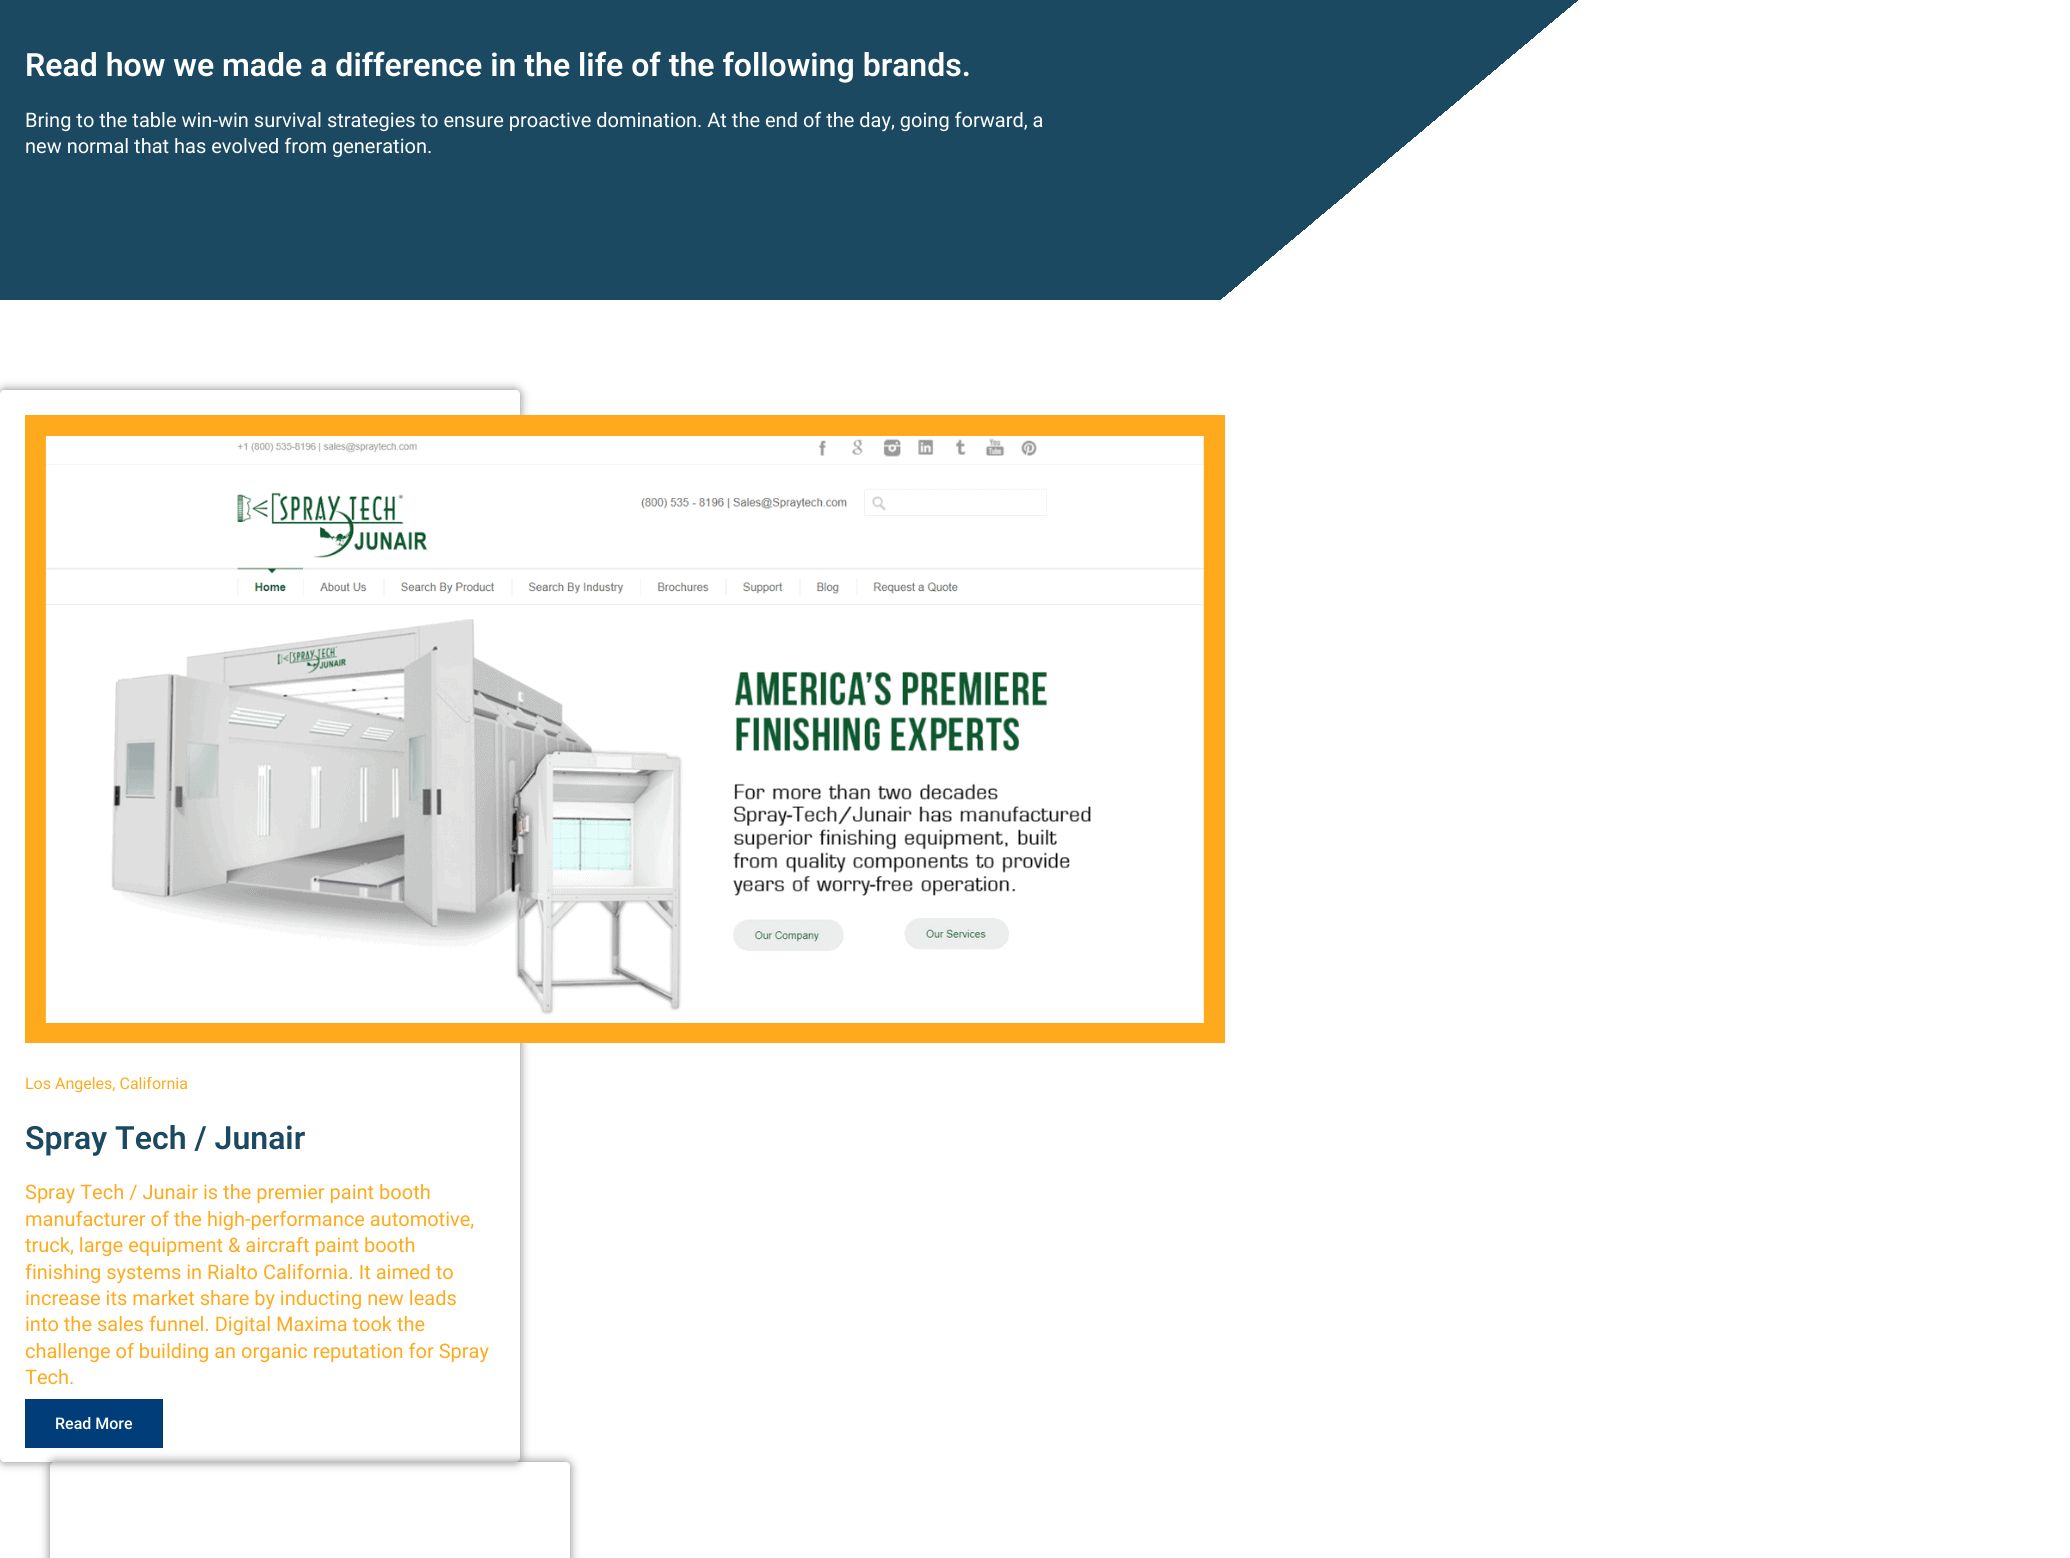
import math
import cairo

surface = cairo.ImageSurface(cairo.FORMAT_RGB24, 2070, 1558)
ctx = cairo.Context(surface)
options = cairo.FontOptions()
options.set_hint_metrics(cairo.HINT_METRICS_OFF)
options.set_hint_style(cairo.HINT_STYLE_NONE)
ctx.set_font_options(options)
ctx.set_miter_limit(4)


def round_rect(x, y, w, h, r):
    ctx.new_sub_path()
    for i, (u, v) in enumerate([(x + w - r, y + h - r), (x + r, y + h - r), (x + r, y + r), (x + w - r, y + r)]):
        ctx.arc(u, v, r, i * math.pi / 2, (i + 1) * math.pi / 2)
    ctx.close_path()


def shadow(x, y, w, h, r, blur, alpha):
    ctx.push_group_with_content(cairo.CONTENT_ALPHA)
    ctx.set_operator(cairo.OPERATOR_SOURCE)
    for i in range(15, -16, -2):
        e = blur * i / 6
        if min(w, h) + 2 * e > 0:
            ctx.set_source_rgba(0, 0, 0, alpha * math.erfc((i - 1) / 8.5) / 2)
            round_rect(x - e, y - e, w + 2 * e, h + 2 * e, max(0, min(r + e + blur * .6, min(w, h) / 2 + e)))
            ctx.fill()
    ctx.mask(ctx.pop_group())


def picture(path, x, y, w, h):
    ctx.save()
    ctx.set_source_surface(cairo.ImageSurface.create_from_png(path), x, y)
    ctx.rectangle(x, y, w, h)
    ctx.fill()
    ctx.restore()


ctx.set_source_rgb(1, 1, 1)
ctx.paint()
gradient = cairo.LinearGradient(534, -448, 1536, 748)
gradient.add_color_stop_rgba(0.65, 0.106, 0.286, 0.384, 1)
gradient.add_color_stop_rgba(0.65, 1, 1, 1, 1)
ctx.set_source(gradient)
ctx.rectangle(0, 0, 1578, 300)
ctx.fill()
ctx.select_font_face("Roboto SemiBold")
ctx.set_font_size(32)
ctx.set_source_rgb(1, 1, 1)
ctx.move_to(25, 76)
ctx.show_text("Read how we made a difference in the life of the following brands.")
ctx.select_font_face("Roboto")
ctx.set_font_size(20)
ctx.move_to(25, 127)
ctx.show_text("Bring to the table win-win survival strategies to ensure proactive domination. At the end of the day, going forward, a")
ctx.move_to(25, 153)
ctx.show_text("new normal that has evolved from generation.")
ctx.save()
ctx.set_fill_rule(cairo.FILL_RULE_EVEN_ODD)
ctx.new_path()
ctx.move_to(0, 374)
ctx.line_to(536, 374)
ctx.line_to(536, 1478)
ctx.line_to(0, 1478)
ctx.close_path()
ctx.move_to(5, 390)
ctx.line_to(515, 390)
ctx.curve_to(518, 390, 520, 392, 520, 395)
ctx.line_to(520, 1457)
ctx.curve_to(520, 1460, 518, 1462, 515, 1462)
ctx.line_to(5, 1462)
ctx.curve_to(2, 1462, 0, 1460, 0, 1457)
ctx.line_to(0, 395)
ctx.curve_to(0, 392, 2, 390, 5, 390)
ctx.close_path()
ctx.clip()
ctx.set_source_rgb(0, 0, 0)
shadow(0, 390, 520, 1072, 5, 5, 0.5)
ctx.restore()
picture("img1.png", 25, 415, 1200, 628)
ctx.set_font_size(16)
ctx.set_source_rgb(1, 0.667, 0.114)
ctx.move_to(25, 1089)
ctx.show_text("Los Angeles, California")
ctx.select_font_face("Roboto SemiBold")
ctx.set_font_size(32)
ctx.set_source_rgb(0.106, 0.286, 0.384)
ctx.move_to(25, 1149)
ctx.show_text("Spray Tech / Junair")
ctx.select_font_face("Roboto")
ctx.set_font_size(20)
ctx.set_source_rgb(1, 0.667, 0.114)
ctx.move_to(25, 1199)
ctx.show_text("Spray Tech / Junair is the premier paint booth")
ctx.move_to(25, 1226)
ctx.show_text("manufacturer of the high-performance automotive,")
ctx.move_to(25, 1252)
ctx.show_text("truck, large equipment & aircraft paint booth")
ctx.move_to(25, 1279)
ctx.show_text("finishing systems in Rialto California. It aimed to")
ctx.move_to(25, 1305)
ctx.show_text("increase its market share by inducting new leads")
ctx.move_to(25, 1331)
ctx.show_text("into the sales funnel. Digital Maxima took the")
ctx.move_to(25, 1358)
ctx.show_text("challenge of building an organic reputation for Spray")
ctx.move_to(25, 1384)
ctx.show_text("Tech.")
ctx.save()
ctx.set_fill_rule(cairo.FILL_RULE_EVEN_ODD)
ctx.new_path()
ctx.move_to(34, 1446)
ctx.line_to(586, 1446)
ctx.line_to(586, 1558)
ctx.line_to(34, 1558)
ctx.close_path()
ctx.move_to(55, 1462)
ctx.line_to(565, 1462)
ctx.curve_to(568, 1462, 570, 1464, 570, 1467)
ctx.line_to(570, 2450)
ctx.curve_to(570, 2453, 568, 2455, 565, 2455)
ctx.line_to(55, 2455)
ctx.curve_to(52, 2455, 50, 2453, 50, 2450)
ctx.line_to(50, 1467)
ctx.curve_to(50, 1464, 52, 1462, 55, 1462)
ctx.close_path()
ctx.clip()
ctx.set_source_rgb(0, 0, 0)
shadow(50, 1462, 520, 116, 5, 5, 0.5)
ctx.restore()
ctx.set_source_rgb(0, 0.239, 0.475)
ctx.rectangle(25, 1399, 138, 49)
ctx.fill()
ctx.select_font_face("Roboto Medium")
ctx.set_font_size(16)
ctx.set_source_rgb(1, 1, 1)
ctx.move_to(55, 1429)
ctx.show_text("Read More")
surface.write_to_png("page.png")
